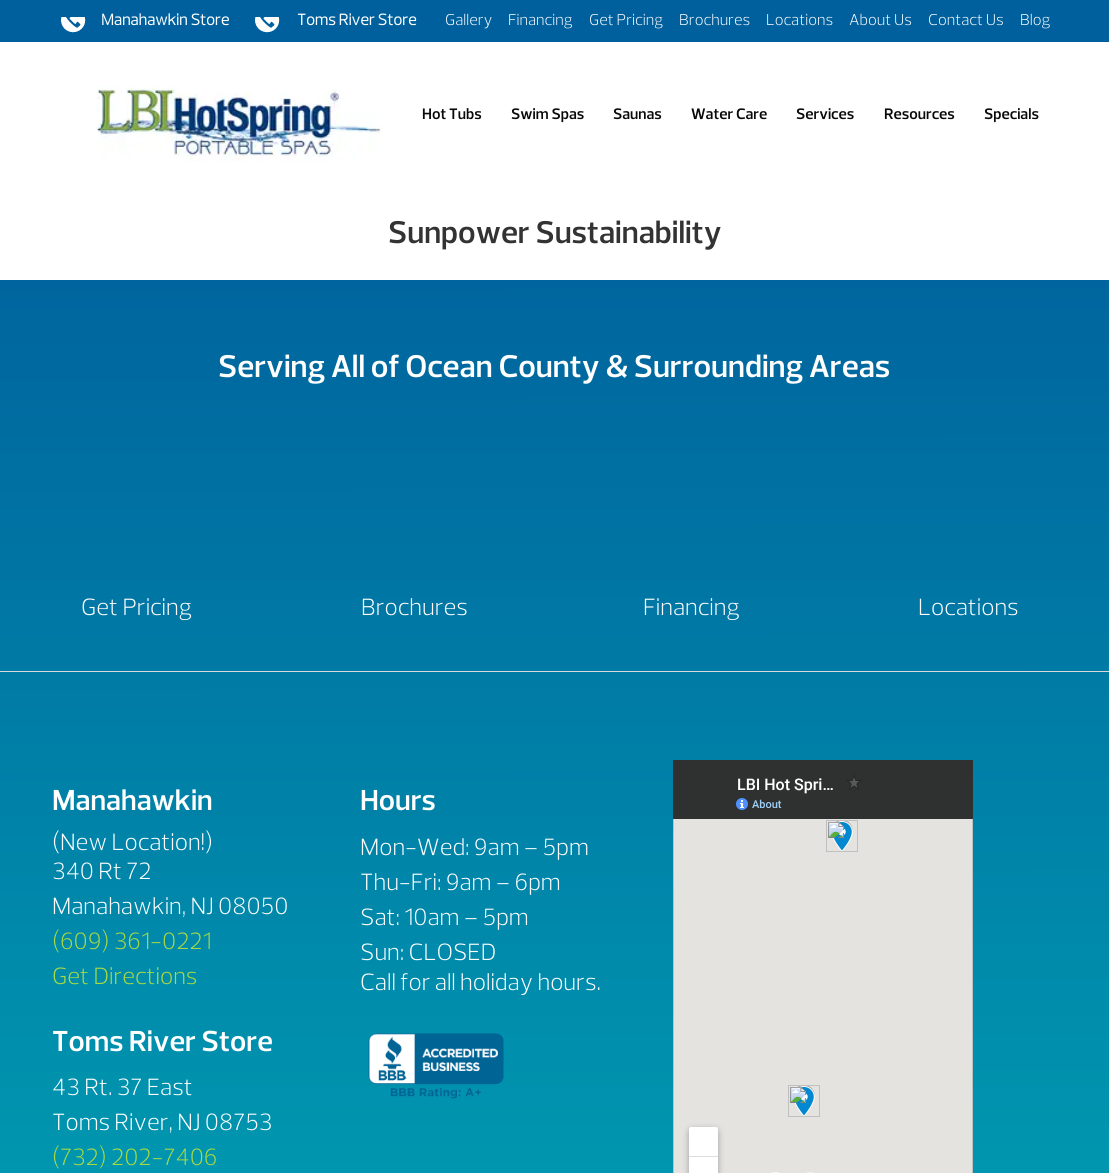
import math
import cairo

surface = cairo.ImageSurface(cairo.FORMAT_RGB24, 1109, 1173)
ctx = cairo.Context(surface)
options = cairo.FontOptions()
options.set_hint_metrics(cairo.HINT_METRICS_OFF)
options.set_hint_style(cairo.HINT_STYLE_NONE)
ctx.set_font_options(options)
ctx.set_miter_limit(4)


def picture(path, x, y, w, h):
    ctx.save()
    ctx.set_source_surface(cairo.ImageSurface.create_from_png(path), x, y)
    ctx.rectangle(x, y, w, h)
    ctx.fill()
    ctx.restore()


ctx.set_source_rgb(1, 1, 1)
ctx.paint()
ctx.set_source_rgb(0, 0.376, 0.616)
ctx.rectangle(0, 0, 1109, 42)
ctx.fill()
picture("img1.png", 61, 17, 25, 16)
ctx.select_font_face("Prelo", cairo.FONT_SLANT_NORMAL, cairo.FONT_WEIGHT_BOLD)
ctx.set_font_size(16)
ctx.set_source_rgb(1, 1, 1)
ctx.move_to(101, 25)
ctx.show_text("Manahawkin Store")
picture("img1.png", 255, 17, 25, 16)
ctx.move_to(297, 25)
ctx.show_text("Toms River Store")
ctx.select_font_face("Prelo Light")
ctx.move_to(445, 25)
ctx.show_text("Gallery")
ctx.move_to(508, 25)
ctx.show_text("Financing")
ctx.move_to(589, 25)
ctx.show_text("Get Pricing")
ctx.move_to(679, 25)
ctx.show_text("Brochures")
ctx.move_to(766, 25)
ctx.show_text("Locations")
ctx.move_to(849, 25)
ctx.show_text("About Us")
ctx.move_to(928, 25)
ctx.show_text("Contact Us")
ctx.move_to(1020, 25)
ctx.show_text("Blog")
picture("img2.png", 97, 86, 284, 76)
ctx.select_font_face("Prelo SemiBold")
ctx.set_font_size(15.5)
ctx.set_source_rgb(0.039, 0.039, 0.039)
ctx.move_to(422, 119)
ctx.show_text("Hot Tubs")
ctx.move_to(511, 119)
ctx.show_text("Swim Spas")
ctx.move_to(613, 119)
ctx.show_text("Saunas")
ctx.move_to(691, 119)
ctx.show_text("Water Care")
ctx.move_to(796, 119)
ctx.show_text("Services")
ctx.move_to(884, 119)
ctx.show_text("Resources")
ctx.move_to(984, 119)
ctx.show_text("Specials")
ctx.set_font_size(32)
ctx.set_source_rgb(0.2, 0.2, 0.2)
ctx.move_to(388, 243)
ctx.show_text("Sunpower Sustainability")
gradient = cairo.LinearGradient(554, 280, 555, 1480)
gradient.add_color_stop_rgba(0, 0, 0.396, 0.62, 1)
gradient.add_color_stop_rgba(1, 0, 0.655, 0.71, 1)
ctx.set_source(gradient)
ctx.rectangle(0, 280, 1109, 893)
ctx.fill()
ctx.set_source_rgb(1, 1, 1)
ctx.move_to(218, 377)
ctx.show_text("Serving All of Ocean County & Surrounding Areas")
ctx.set_source_rgb(0.855, 0.855, 0.855)
ctx.rectangle(0, 671, 1109, 1)
ctx.fill()
ctx.select_font_face("Prelo Light")
ctx.set_font_size(24)
ctx.set_source_rgb(1, 1, 1)
ctx.move_to(81, 615)
ctx.show_text("Get Pricing")
ctx.move_to(361, 615)
ctx.show_text("Brochures")
ctx.move_to(643, 615)
ctx.show_text("Financing")
ctx.move_to(918, 615)
ctx.show_text("Locations")
ctx.select_font_face("Prelo SemiBold")
ctx.set_font_size(29.5)
ctx.move_to(52, 810)
ctx.show_text("Manahawkin")
ctx.select_font_face("Prelo Light")
ctx.set_font_size(24)
ctx.move_to(52, 850)
ctx.show_text("(New Location!)")
ctx.move_to(52, 879)
ctx.show_text("340 Rt 72")
ctx.move_to(52, 914)
ctx.show_text("Manahawkin, NJ 08050")
ctx.set_source_rgb(0.655, 0.851, 0.263)
ctx.move_to(52, 949)
ctx.show_text("(609) 361-0221")
ctx.move_to(52, 984)
ctx.show_text("Get Directions")
ctx.select_font_face("Prelo SemiBold")
ctx.set_font_size(29.5)
ctx.set_source_rgb(1, 1, 1)
ctx.move_to(52, 1051)
ctx.show_text("Toms River Store")
ctx.select_font_face("Prelo Light")
ctx.set_font_size(24)
ctx.move_to(52, 1095)
ctx.show_text("43 Rt. 37 East")
ctx.move_to(52, 1130)
ctx.show_text("Toms River, NJ 08753")
ctx.set_source_rgb(0.655, 0.851, 0.263)
ctx.move_to(52, 1165)
ctx.show_text("(732) 202-7406")
ctx.select_font_face("Prelo SemiBold")
ctx.set_font_size(29.5)
ctx.set_source_rgb(1, 1, 1)
ctx.move_to(360, 810)
ctx.show_text("Hours")
ctx.select_font_face("Prelo Light")
ctx.set_font_size(24)
ctx.move_to(360, 855)
ctx.show_text("Mon-Wed: 9am – 5pm")
ctx.move_to(360, 890)
ctx.show_text("Thu-Fri: 9am – 6pm")
ctx.move_to(360, 925)
ctx.show_text("Sat: 10am – 5pm")
ctx.move_to(360, 960)
ctx.show_text("Sun: CLOSED")
ctx.move_to(360, 990)
ctx.show_text("Call for all holiday hours.")
picture("img3.png", 368, 1033, 136, 66)
picture("img4.png", 673, 760, 300, 413)
surface.write_to_png("page.png")
